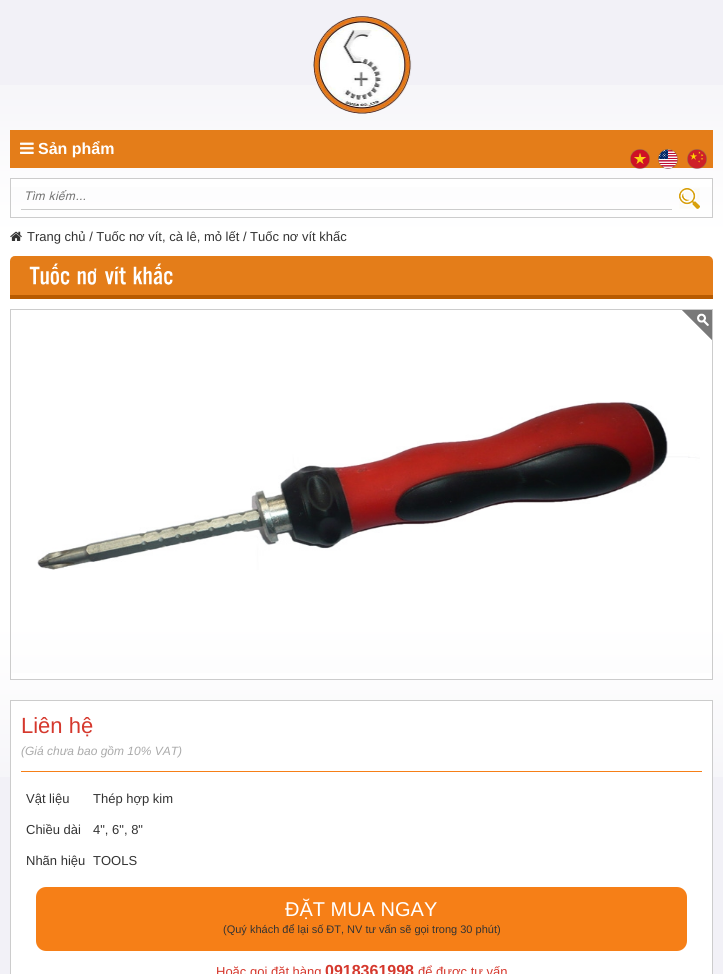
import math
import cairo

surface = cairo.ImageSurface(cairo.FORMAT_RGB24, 723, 974)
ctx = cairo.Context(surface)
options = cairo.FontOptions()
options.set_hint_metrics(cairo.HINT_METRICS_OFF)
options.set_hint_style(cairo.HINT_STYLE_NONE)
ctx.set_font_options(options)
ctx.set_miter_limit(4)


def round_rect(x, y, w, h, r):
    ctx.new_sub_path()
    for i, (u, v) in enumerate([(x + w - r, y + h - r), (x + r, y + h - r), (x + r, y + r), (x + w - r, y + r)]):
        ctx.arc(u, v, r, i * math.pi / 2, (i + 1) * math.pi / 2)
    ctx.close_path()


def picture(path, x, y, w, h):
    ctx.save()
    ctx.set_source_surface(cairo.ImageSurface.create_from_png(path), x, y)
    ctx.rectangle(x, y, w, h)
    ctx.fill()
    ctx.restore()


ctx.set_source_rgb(0.949, 0.945, 0.965)
ctx.paint()
picture("img1.png", 0, 85, 723, 692)
picture("img2.png", 313, 16, 99, 98)
ctx.set_source_rgb(0.894, 0.49, 0.098)
ctx.rectangle(10, 130, 703, 38)
ctx.fill()
picture("img3.png", 20, 142, 14, 12)
ctx.select_font_face("Liberation Sans", cairo.FONT_SLANT_NORMAL, cairo.FONT_WEIGHT_BOLD)
ctx.set_font_size(16)
ctx.set_source_rgb(1, 1, 1)
ctx.move_to(38, 154)
ctx.show_text("Sản phẩm")
ctx.rectangle(11, 179, 701, 8)
ctx.fill()
ctx.rectangle(10.5, 178.5, 702, 39)
ctx.set_source_rgb(0.8, 0.8, 0.8)
ctx.set_line_width(1)
ctx.stroke()
picture("img4.png", 630, 149, 20, 20)
picture("img5.png", 658, 149, 20, 20)
picture("img6.png", 687, 149, 20, 20)
ctx.rectangle(21, 209, 651, 1)
ctx.fill()
ctx.select_font_face("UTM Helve", cairo.FONT_SLANT_ITALIC)
ctx.set_font_size(12)
ctx.set_source_rgb(0.459, 0.459, 0.459)
ctx.move_to(24, 200)
ctx.show_text("Tìm kiếm...")
picture("img7.png", 679, 188, 21, 21)
picture("img8.png", 10, 231, 12, 10)
ctx.select_font_face("Liberation Sans")
ctx.set_font_size(13)
ctx.set_source_rgb(0.2, 0.2, 0.2)
ctx.move_to(27, 241)
ctx.show_text("Trang chủ / Tuốc nơ vít, cà lê, mỏ lết / Tuốc nơ vít khấc")
picture("img9.png", 10, 256, 703, 39)
ctx.set_source_rgb(0.722, 0.357, 0.004)
ctx.rectangle(10, 295, 703, 4)
ctx.fill()
picture("img10.png", 29, 263, 41, 22)
picture("img11.png", 77, 268, 20, 17)
picture("img12.png", 105, 266, 21, 19)
picture("img13.png", 133, 263, 40, 22)
ctx.set_source_rgb(1, 1, 1)
ctx.rectangle(11, 673, 701, 6)
ctx.fill()
ctx.rectangle(10.5, 309.5, 702, 370)
ctx.set_source_rgb(0.8, 0.8, 0.8)
ctx.stroke()
picture("img14.png", 682, 310, 30, 30)
picture("img15.png", 37, 401, 663, 169)
ctx.set_source_rgb(1, 1, 1)
ctx.rectangle(10.5, 700.5, 702, 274)
ctx.fill_preserve()
ctx.set_source_rgb(0.8, 0.8, 0.8)
ctx.stroke()
ctx.set_source_rgb(0.961, 0.498, 0.09)
ctx.rectangle(21, 771, 681, 1)
ctx.fill()
ctx.set_font_size(22)
ctx.set_source_rgb(0.835, 0.22, 0.176)
ctx.move_to(21, 733)
ctx.show_text("Liên hệ")
ctx.select_font_face("Liberation Sans", cairo.FONT_SLANT_ITALIC)
ctx.set_font_size(12)
ctx.set_source_rgb(0.667, 0.667, 0.667)
ctx.move_to(21, 755)
ctx.show_text("(Giá chưa bao gồm 10% VAT)")
ctx.select_font_face("Liberation Sans")
ctx.set_font_size(13)
ctx.set_source_rgb(0.2, 0.2, 0.2)
ctx.move_to(26, 803)
ctx.show_text("Vật liệu")
ctx.move_to(93, 803)
ctx.show_text("Thép hợp kim")
ctx.move_to(26, 834)
ctx.show_text("Chiều dài")
ctx.move_to(93, 834)
ctx.show_text("4\", 6\", 8\"")
ctx.move_to(26, 865)
ctx.show_text("Nhãn hiệu")
ctx.move_to(93, 865)
ctx.show_text("TOOLS")
ctx.set_source_rgb(0.961, 0.498, 0.09)
round_rect(37, 888, 649, 62, 9)
ctx.fill_preserve()
ctx.set_line_width(2)
ctx.stroke()
ctx.set_font_size(20)
ctx.set_source_rgb(1, 1, 1)
ctx.move_to(285, 916)
ctx.show_text("ĐẶT MUA NGAY")
ctx.set_font_size(11)
ctx.set_source_rgb(0.2, 0.2, 0.2)
ctx.move_to(223, 933)
ctx.show_text("(Quý khách để lại số ĐT, NV tư vấn sẽ gọi trong 30 phút)")
ctx.set_font_size(13)
ctx.set_source_rgb(0.835, 0.22, 0.176)
ctx.move_to(216, 976)
ctx.show_text("Hoặc gọi đặt hàng")
ctx.select_font_face("Liberation Sans", cairo.FONT_SLANT_NORMAL, cairo.FONT_WEIGHT_BOLD)
ctx.set_font_size(16)
ctx.move_to(325, 976)
ctx.show_text("0918361998")
ctx.select_font_face("Liberation Sans")
ctx.set_font_size(13)
ctx.move_to(418, 976)
ctx.show_text("để được tư vấn")
surface.write_to_png("page.png")
